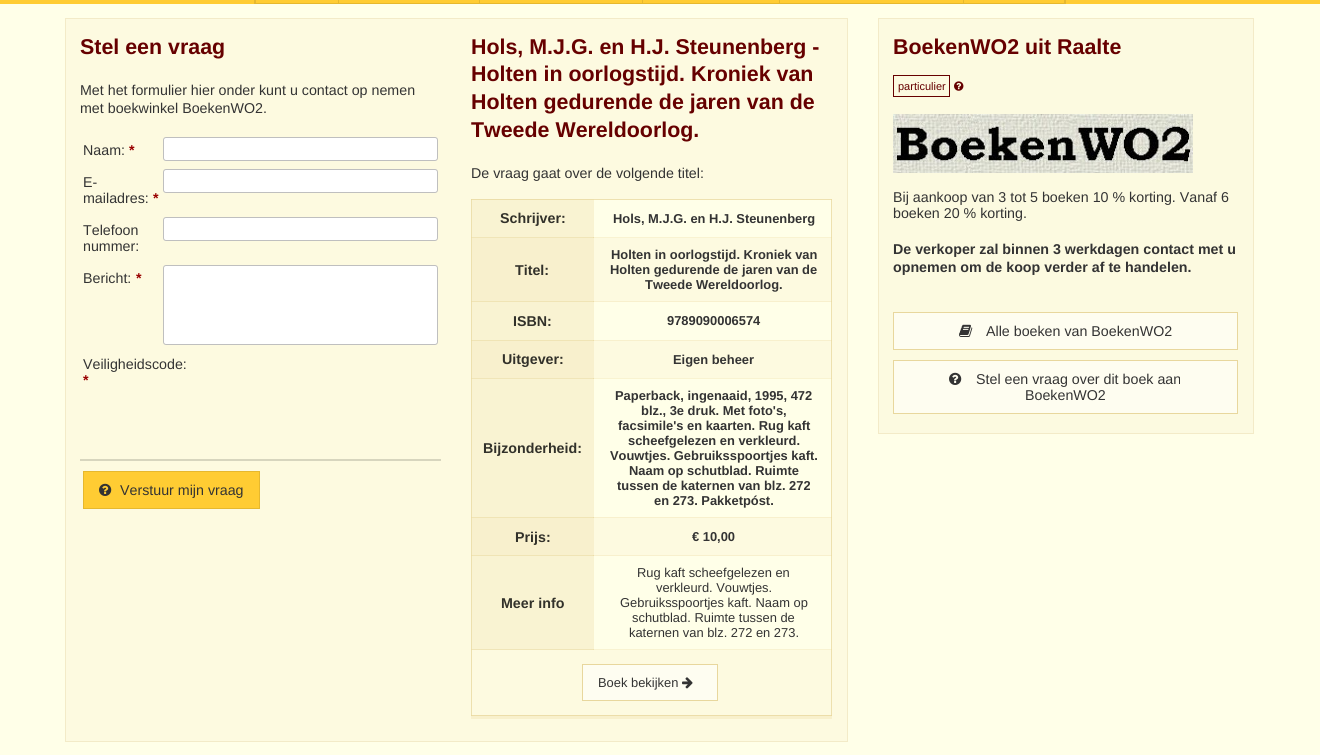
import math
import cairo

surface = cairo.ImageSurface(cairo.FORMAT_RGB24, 1320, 755)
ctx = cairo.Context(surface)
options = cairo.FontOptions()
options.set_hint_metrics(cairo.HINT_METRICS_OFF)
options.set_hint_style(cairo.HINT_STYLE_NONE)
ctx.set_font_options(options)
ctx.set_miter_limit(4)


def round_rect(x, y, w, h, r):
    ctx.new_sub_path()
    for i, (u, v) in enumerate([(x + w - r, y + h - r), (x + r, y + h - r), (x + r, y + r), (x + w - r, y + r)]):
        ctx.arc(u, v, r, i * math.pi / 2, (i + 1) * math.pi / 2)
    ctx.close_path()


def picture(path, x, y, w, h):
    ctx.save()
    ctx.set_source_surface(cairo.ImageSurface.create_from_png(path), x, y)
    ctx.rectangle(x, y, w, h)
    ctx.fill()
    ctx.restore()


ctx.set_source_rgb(1, 1, 0.91)
ctx.paint()
ctx.set_source_rgb(1, 0.8, 0.2)
ctx.rectangle(0, 0, 1320, 4)
ctx.fill()
ctx.rectangle(254.5, -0.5, 811, 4)
ctx.set_source_rgb(0.902, 0.722, 0.18)
ctx.set_line_width(1)
ctx.stroke()
ctx.rectangle(338, 0, 1, 3)
ctx.fill()
ctx.rectangle(255, 0, 1, 3)
ctx.fill()
ctx.rectangle(479, 0, 1, 3)
ctx.fill()
ctx.rectangle(642, 0, 1, 3)
ctx.fill()
ctx.rectangle(779, 0, 1, 3)
ctx.fill()
ctx.rectangle(963, 0, 1, 3)
ctx.fill()
ctx.rectangle(1064, 0, 1, 3)
ctx.fill()
ctx.set_source_rgb(0.992, 0.98, 0.878)
ctx.rectangle(66, 19, 781, 722)
ctx.fill()
ctx.set_source_rgb(0.929, 0.878, 0.682)
ctx.rectangle(471, 199, 1, 517)
ctx.fill()
ctx.set_source_rgb(0.922, 0.863, 0.651)
ctx.rectangle(471, 237, 1, 1)
ctx.fill()
ctx.rectangle(471, 301, 1, 1)
ctx.fill()
ctx.rectangle(471, 340, 1, 1)
ctx.fill()
ctx.rectangle(471, 378, 1, 1)
ctx.fill()
ctx.rectangle(471, 517, 1, 1)
ctx.fill()
ctx.rectangle(471, 555, 1, 1)
ctx.fill()
ctx.rectangle(471, 649, 1, 1)
ctx.fill()
ctx.set_source_rgb(0.914, 0.847, 0.627)
ctx.rectangle(471, 715, 1, 1)
ctx.fill()
ctx.set_source_rgb(0.914, 0.851, 0.631)
ctx.rectangle(471, 199, 1, 1)
ctx.fill()
ctx.rectangle(65.5, 18.5, 782, 723)
ctx.set_source_rgb(0.953, 0.918, 0.784)
ctx.stroke()
ctx.select_font_face("Liberation Sans", cairo.FONT_SLANT_NORMAL, cairo.FONT_WEIGHT_BOLD)
ctx.set_font_size(21.4)
ctx.set_source_rgb(0.4, 0, 0)
ctx.move_to(80, 54)
ctx.show_text("Stel een vraag")
ctx.select_font_face("Liberation Sans")
ctx.set_font_size(14.25)
ctx.set_source_rgb(0.2, 0.2, 0.2)
ctx.move_to(80, 95)
ctx.show_text("Met het formulier hier onder kunt u contact op nemen")
ctx.move_to(80, 113)
ctx.show_text("met boekwinkel BoekenWO2.")
ctx.move_to(83, 155)
ctx.show_text("Naam:")
ctx.select_font_face("Liberation Sans", cairo.FONT_SLANT_NORMAL, cairo.FONT_WEIGHT_BOLD)
ctx.set_source_rgb(0.6, 0, 0)
ctx.move_to(129, 155)
ctx.show_text("*")
ctx.set_source_rgb(1, 1, 1)
round_rect(163, 137, 275, 24, 3)
ctx.fill()
round_rect(163.5, 137.5, 274, 23, 2.5)
ctx.set_source_rgba(0, 0, 0, 0.25)
ctx.stroke()
ctx.select_font_face("Liberation Sans")
ctx.set_source_rgb(0.2, 0.2, 0.2)
ctx.move_to(83, 187)
ctx.show_text("E-")
ctx.move_to(83, 203)
ctx.show_text("mailadres:")
ctx.select_font_face("Liberation Sans", cairo.FONT_SLANT_NORMAL, cairo.FONT_WEIGHT_BOLD)
ctx.set_source_rgb(0.6, 0, 0)
ctx.move_to(153, 203)
ctx.show_text("*")
ctx.set_source_rgb(1, 1, 1)
round_rect(163, 169, 275, 24, 3)
ctx.fill()
round_rect(163.5, 169.5, 274, 23, 2.5)
ctx.set_source_rgba(0, 0, 0, 0.25)
ctx.stroke()
ctx.select_font_face("Liberation Sans")
ctx.set_source_rgb(0.2, 0.2, 0.2)
ctx.move_to(83, 235)
ctx.show_text("Telefoon")
ctx.move_to(83, 251)
ctx.show_text("nummer:")
ctx.set_source_rgb(1, 1, 1)
round_rect(163, 217, 275, 24, 3)
ctx.fill()
round_rect(163.5, 217.5, 274, 23, 2.5)
ctx.set_source_rgba(0, 0, 0, 0.25)
ctx.stroke()
ctx.set_source_rgb(0.2, 0.2, 0.2)
ctx.move_to(83, 283)
ctx.show_text("Bericht:")
ctx.select_font_face("Liberation Sans", cairo.FONT_SLANT_NORMAL, cairo.FONT_WEIGHT_BOLD)
ctx.set_source_rgb(0.6, 0, 0)
ctx.move_to(136, 283)
ctx.show_text("*")
ctx.set_source_rgb(1, 1, 1)
round_rect(163, 265, 275, 80, 3)
ctx.fill()
round_rect(163.5, 265.5, 274, 79, 2.5)
ctx.set_source_rgba(0, 0, 0, 0.25)
ctx.stroke()
ctx.select_font_face("Liberation Sans")
ctx.set_source_rgb(0.2, 0.2, 0.2)
ctx.move_to(83, 369)
ctx.show_text("Veiligheidscode:")
ctx.select_font_face("Liberation Sans", cairo.FONT_SLANT_NORMAL, cairo.FONT_WEIGHT_BOLD)
ctx.set_source_rgb(0.6, 0, 0)
ctx.move_to(83, 385)
ctx.show_text("*")
ctx.set_source_rgb(0.843, 0.835, 0.745)
ctx.rectangle(80, 459, 361, 2)
ctx.fill()
ctx.set_source_rgb(1, 0.8, 0.2)
ctx.rectangle(83.5, 471.5, 176, 37)
ctx.fill_preserve()
ctx.set_source_rgb(0.902, 0.722, 0.18)
ctx.stroke()
picture("img1.png", 99, 483, 13, 13)
ctx.select_font_face("Liberation Sans")
ctx.set_source_rgb(0.2, 0.2, 0.2)
ctx.move_to(120, 495)
ctx.show_text("Verstuur mijn vraag")
ctx.select_font_face("Liberation Sans", cairo.FONT_SLANT_NORMAL, cairo.FONT_WEIGHT_BOLD)
ctx.set_font_size(21.4)
ctx.set_source_rgb(0.4, 0, 0)
ctx.move_to(471, 54)
ctx.show_text("Hols, M.J.G. en H.J. Steunenberg -")
ctx.move_to(471, 81)
ctx.show_text("Holten in oorlogstijd. Kroniek van")
ctx.move_to(471, 109)
ctx.show_text("Holten gedurende de jaren van de")
ctx.move_to(471, 137)
ctx.show_text("Tweede Wereldoorlog.")
ctx.select_font_face("Liberation Sans")
ctx.set_font_size(14.25)
ctx.set_source_rgb(0.2, 0.2, 0.2)
ctx.move_to(471, 178)
ctx.show_text("De vraag gaat over de volgende titel:")
ctx.set_source_rgb(0.969, 0.941, 0.8)
ctx.rectangle(471, 716, 361, 3)
ctx.fill()
ctx.set_source_rgb(1, 1, 0.91)
ctx.rectangle(594, 200, 237, 37)
ctx.fill()
ctx.set_source_rgb(0.973, 0.953, 0.82)
ctx.rectangle(593, 199, 1, 39)
ctx.fill()
ctx.rectangle(593, 237, 239, 1)
ctx.fill()
ctx.set_source_rgb(0.925, 0.871, 0.667)
ctx.rectangle(593, 237, 1, 1)
ctx.fill()
ctx.set_source_rgb(0.933, 0.882, 0.69)
ctx.rectangle(831, 199, 1, 39)
ctx.fill()
ctx.set_source_rgb(0.925, 0.871, 0.667)
ctx.rectangle(831, 237, 1, 1)
ctx.fill()
ctx.set_source_rgb(0.933, 0.882, 0.69)
ctx.rectangle(594, 199, 238, 1)
ctx.fill()
ctx.set_source_rgb(0.925, 0.871, 0.667)
ctx.rectangle(472, 199, 122, 1)
ctx.fill()
ctx.set_source_rgb(0.918, 0.855, 0.635)
ctx.rectangle(831, 199, 1, 1)
ctx.fill()
ctx.set_source_rgb(0.973, 0.953, 0.824)
ctx.rectangle(472, 200, 121, 37)
ctx.fill()
ctx.set_source_rgb(0.941, 0.898, 0.722)
ctx.rectangle(472, 237, 121, 1)
ctx.fill()
ctx.select_font_face("Liberation Sans", cairo.FONT_SLANT_NORMAL, cairo.FONT_WEIGHT_BOLD)
ctx.set_source_rgb(0.196, 0.192, 0.165)
ctx.move_to(500, 223)
ctx.show_text("Schrijver:")
ctx.set_font_size(12.9)
ctx.set_source_rgb(0.2, 0.2, 0.2)
ctx.move_to(613, 223)
ctx.show_text("Hols, M.J.G. en H.J. Steunenberg")
ctx.set_source_rgb(0.969, 0.941, 0.804)
ctx.rectangle(593, 238, 1, 64)
ctx.fill()
ctx.rectangle(593, 301, 239, 1)
ctx.fill()
ctx.set_source_rgb(0.925, 0.871, 0.663)
ctx.rectangle(593, 301, 1, 1)
ctx.fill()
ctx.set_source_rgb(0.929, 0.878, 0.682)
ctx.rectangle(831, 238, 1, 64)
ctx.fill()
ctx.set_source_rgb(0.922, 0.867, 0.663)
ctx.rectangle(831, 301, 1, 1)
ctx.fill()
ctx.set_source_rgb(0.969, 0.941, 0.804)
ctx.rectangle(472, 238, 121, 63)
ctx.fill()
ctx.set_source_rgb(0.941, 0.894, 0.71)
ctx.rectangle(472, 301, 121, 1)
ctx.fill()
ctx.set_font_size(14.25)
ctx.set_source_rgb(0.196, 0.192, 0.165)
ctx.move_to(515, 275)
ctx.show_text("Titel:")
ctx.set_font_size(12.9)
ctx.set_source_rgb(0.2, 0.2, 0.2)
ctx.move_to(611, 259)
ctx.show_text("Holten in oorlogstijd. Kroniek van")
ctx.move_to(610, 274)
ctx.show_text("Holten gedurende de jaren van de")
ctx.move_to(645, 289)
ctx.show_text("Tweede Wereldoorlog.")
ctx.set_source_rgb(1, 1, 0.91)
ctx.rectangle(594, 302, 237, 38)
ctx.fill()
ctx.set_source_rgb(0.973, 0.953, 0.82)
ctx.rectangle(593, 302, 1, 38)
ctx.fill()
ctx.set_source_rgb(0.933, 0.882, 0.69)
ctx.rectangle(831, 302, 1, 38)
ctx.fill()
ctx.set_source_rgb(0.973, 0.953, 0.824)
ctx.rectangle(472, 302, 121, 38)
ctx.fill()
ctx.set_font_size(14.25)
ctx.set_source_rgb(0.196, 0.192, 0.165)
ctx.move_to(513, 326)
ctx.show_text("ISBN:")
ctx.set_font_size(12.9)
ctx.set_source_rgb(0.2, 0.2, 0.2)
ctx.move_to(667, 325)
ctx.show_text("9789090006574")
ctx.set_source_rgb(0.969, 0.941, 0.804)
ctx.rectangle(593, 340, 239, 1)
ctx.fill()
ctx.rectangle(593, 340, 1, 38)
ctx.fill()
ctx.set_source_rgb(0.925, 0.871, 0.663)
ctx.rectangle(593, 340, 1, 1)
ctx.fill()
ctx.set_source_rgb(0.929, 0.878, 0.682)
ctx.rectangle(831, 340, 1, 38)
ctx.fill()
ctx.set_source_rgb(0.922, 0.867, 0.663)
ctx.rectangle(831, 340, 1, 1)
ctx.fill()
ctx.set_source_rgb(0.969, 0.941, 0.804)
ctx.rectangle(472, 341, 121, 37)
ctx.fill()
ctx.set_source_rgb(0.941, 0.894, 0.71)
ctx.rectangle(472, 340, 121, 1)
ctx.fill()
ctx.set_font_size(14.25)
ctx.set_source_rgb(0.196, 0.192, 0.165)
ctx.move_to(502, 364)
ctx.show_text("Uitgever:")
ctx.set_font_size(12.9)
ctx.set_source_rgb(0.2, 0.2, 0.2)
ctx.move_to(673, 364)
ctx.show_text("Eigen beheer")
ctx.set_source_rgb(1, 1, 0.91)
ctx.rectangle(594, 379, 237, 138)
ctx.fill()
ctx.set_source_rgb(0.973, 0.953, 0.82)
ctx.rectangle(593, 378, 239, 1)
ctx.fill()
ctx.rectangle(593, 378, 1, 139)
ctx.fill()
ctx.set_source_rgb(0.925, 0.871, 0.667)
ctx.rectangle(593, 378, 1, 1)
ctx.fill()
ctx.set_source_rgb(0.933, 0.882, 0.69)
ctx.rectangle(831, 378, 1, 139)
ctx.fill()
ctx.set_source_rgb(0.925, 0.871, 0.667)
ctx.rectangle(831, 378, 1, 1)
ctx.fill()
ctx.set_source_rgb(0.973, 0.953, 0.824)
ctx.rectangle(472, 379, 121, 138)
ctx.fill()
ctx.set_source_rgb(0.941, 0.898, 0.722)
ctx.rectangle(472, 378, 121, 1)
ctx.fill()
ctx.set_font_size(14.25)
ctx.set_source_rgb(0.196, 0.192, 0.165)
ctx.move_to(483, 453)
ctx.show_text("Bijzonderheid:")
ctx.set_font_size(12.9)
ctx.set_source_rgb(0.2, 0.2, 0.2)
ctx.move_to(615, 400)
ctx.show_text("Paperback, ingenaaid, 1995, 472")
ctx.move_to(641, 415)
ctx.show_text("blz., 3e druk. Met foto's,")
ctx.move_to(618, 430)
ctx.show_text("facsimile's en kaarten. Rug kaft")
ctx.move_to(628, 445)
ctx.show_text("scheefgelezen en verkleurd.")
ctx.move_to(610, 460)
ctx.show_text("Vouwtjes. Gebruiksspoortjes kaft.")
ctx.move_to(629, 475)
ctx.show_text("Naam op schutblad. Ruimte")
ctx.move_to(617, 490)
ctx.show_text("tussen de katernen van blz. 272")
ctx.move_to(654, 505)
ctx.show_text("en 273. Pakketpóst.")
ctx.set_source_rgb(0.969, 0.941, 0.804)
ctx.rectangle(593, 517, 239, 1)
ctx.fill()
ctx.rectangle(593, 517, 1, 39)
ctx.fill()
ctx.set_source_rgb(0.925, 0.871, 0.663)
ctx.rectangle(593, 517, 1, 1)
ctx.fill()
ctx.set_source_rgb(0.969, 0.941, 0.804)
ctx.rectangle(593, 555, 239, 1)
ctx.fill()
ctx.set_source_rgb(0.925, 0.871, 0.663)
ctx.rectangle(593, 555, 1, 1)
ctx.fill()
ctx.set_source_rgb(0.929, 0.878, 0.682)
ctx.rectangle(831, 517, 1, 39)
ctx.fill()
ctx.set_source_rgb(0.922, 0.867, 0.663)
ctx.rectangle(831, 517, 1, 1)
ctx.fill()
ctx.rectangle(831, 555, 1, 1)
ctx.fill()
ctx.set_source_rgb(0.969, 0.941, 0.804)
ctx.rectangle(472, 518, 121, 37)
ctx.fill()
ctx.set_source_rgb(0.941, 0.894, 0.71)
ctx.rectangle(472, 517, 121, 1)
ctx.fill()
ctx.rectangle(472, 555, 121, 1)
ctx.fill()
ctx.set_font_size(14.25)
ctx.set_source_rgb(0.196, 0.192, 0.165)
ctx.move_to(515, 542)
ctx.show_text("Prijs:")
ctx.set_font_size(12.9)
ctx.set_source_rgb(0.2, 0.2, 0.2)
ctx.move_to(692, 541)
ctx.show_text("€ 10,00")
ctx.set_source_rgb(1, 1, 0.91)
ctx.rectangle(594, 556, 237, 93)
ctx.fill()
ctx.set_source_rgb(0.973, 0.953, 0.82)
ctx.rectangle(593, 556, 1, 94)
ctx.fill()
ctx.rectangle(593, 649, 239, 1)
ctx.fill()
ctx.set_source_rgb(0.933, 0.882, 0.686)
ctx.rectangle(593, 649, 1, 1)
ctx.fill()
ctx.set_source_rgb(0.933, 0.882, 0.69)
ctx.rectangle(831, 556, 1, 94)
ctx.fill()
ctx.set_source_rgb(0.925, 0.871, 0.667)
ctx.rectangle(831, 649, 1, 1)
ctx.fill()
ctx.set_source_rgb(0.973, 0.953, 0.824)
ctx.rectangle(472, 556, 121, 93)
ctx.fill()
ctx.set_source_rgb(0.941, 0.898, 0.722)
ctx.rectangle(472, 649, 121, 1)
ctx.fill()
ctx.set_font_size(14.25)
ctx.set_source_rgb(0.196, 0.192, 0.165)
ctx.move_to(501, 608)
ctx.show_text("Meer info")
ctx.select_font_face("Liberation Sans")
ctx.set_font_size(12.9)
ctx.set_source_rgb(0.2, 0.2, 0.2)
ctx.move_to(637, 577)
ctx.show_text("Rug kaft scheefgelezen en")
ctx.move_to(656, 592)
ctx.show_text("verkleurd. Vouwtjes.")
ctx.move_to(620, 607)
ctx.show_text("Gebruiksspoortjes kaft. Naam op")
ctx.move_to(632, 622)
ctx.show_text("schutblad. Ruimte tussen de")
ctx.move_to(629, 637)
ctx.show_text("katernen van blz. 272 en 273.")
ctx.set_source_rgb(0.922, 0.867, 0.663)
ctx.rectangle(472, 715, 360, 1)
ctx.fill()
ctx.set_source_rgb(0.929, 0.878, 0.682)
ctx.rectangle(831, 650, 1, 66)
ctx.fill()
ctx.set_source_rgb(0.914, 0.847, 0.627)
ctx.rectangle(831, 715, 1, 1)
ctx.fill()
ctx.set_source_rgb(0.996, 0.992, 0.945)
ctx.rectangle(582.5, 664.5, 135, 36)
ctx.fill_preserve()
ctx.set_source_rgb(0.91, 0.843, 0.616)
ctx.stroke()
ctx.set_source_rgb(0.2, 0.2, 0.2)
ctx.move_to(598, 687)
ctx.show_text("Boek bekijken")
picture("img2.png", 682, 677, 11, 12)
ctx.set_source_rgb(0.988, 0.98, 0.878)
ctx.rectangle(878.5, 18.5, 375, 415)
ctx.fill_preserve()
ctx.set_source_rgb(0.953, 0.918, 0.784)
ctx.stroke()
ctx.select_font_face("Liberation Sans", cairo.FONT_SLANT_NORMAL, cairo.FONT_WEIGHT_BOLD)
ctx.set_font_size(21.4)
ctx.set_source_rgb(0.4, 0, 0)
ctx.move_to(893, 54)
ctx.show_text("BoekenWO2 uit Raalte")
ctx.rectangle(893.5, 75.5, 56, 21)
ctx.stroke()
ctx.select_font_face("Liberation Sans")
ctx.set_font_size(11)
ctx.move_to(898, 90)
ctx.show_text("particulier")
picture("img3.png", 954, 81, 10, 10)
picture("img4.png", 893, 114, 300, 59)
ctx.set_font_size(14.25)
ctx.set_source_rgb(0.2, 0.2, 0.2)
ctx.move_to(893, 202)
ctx.show_text("Bij aankoop van 3 tot 5 boeken 10 % korting. Vanaf 6")
ctx.move_to(893, 218)
ctx.show_text("boeken 20 % korting.")
ctx.select_font_face("Liberation Sans", cairo.FONT_SLANT_NORMAL, cairo.FONT_WEIGHT_BOLD)
ctx.move_to(893, 254)
ctx.show_text("De verkoper zal binnen 3 werkdagen contact met u")
ctx.move_to(893, 272)
ctx.show_text("opnemen om de koop verder af te handelen.")
ctx.set_source_rgb(0.996, 0.992, 0.941)
ctx.rectangle(893.5, 312.5, 344, 37)
ctx.fill_preserve()
ctx.set_source_rgb(0.91, 0.843, 0.616)
ctx.stroke()
picture("img5.png", 959, 324, 14, 13)
ctx.select_font_face("Liberation Sans")
ctx.set_source_rgb(0.2, 0.2, 0.2)
ctx.move_to(986, 336)
ctx.show_text("Alle boeken van BoekenWO2")
ctx.set_source_rgb(0.996, 0.992, 0.941)
ctx.rectangle(893.5, 360.5, 344, 53)
ctx.fill_preserve()
ctx.set_source_rgb(0.91, 0.843, 0.616)
ctx.stroke()
picture("img6.png", 949, 372, 13, 13)
ctx.set_source_rgb(0.2, 0.2, 0.2)
ctx.move_to(976, 384)
ctx.show_text("Stel een vraag over dit boek aan")
ctx.move_to(1025, 400)
ctx.show_text("BoekenWO2")
surface.write_to_png("page.png")
